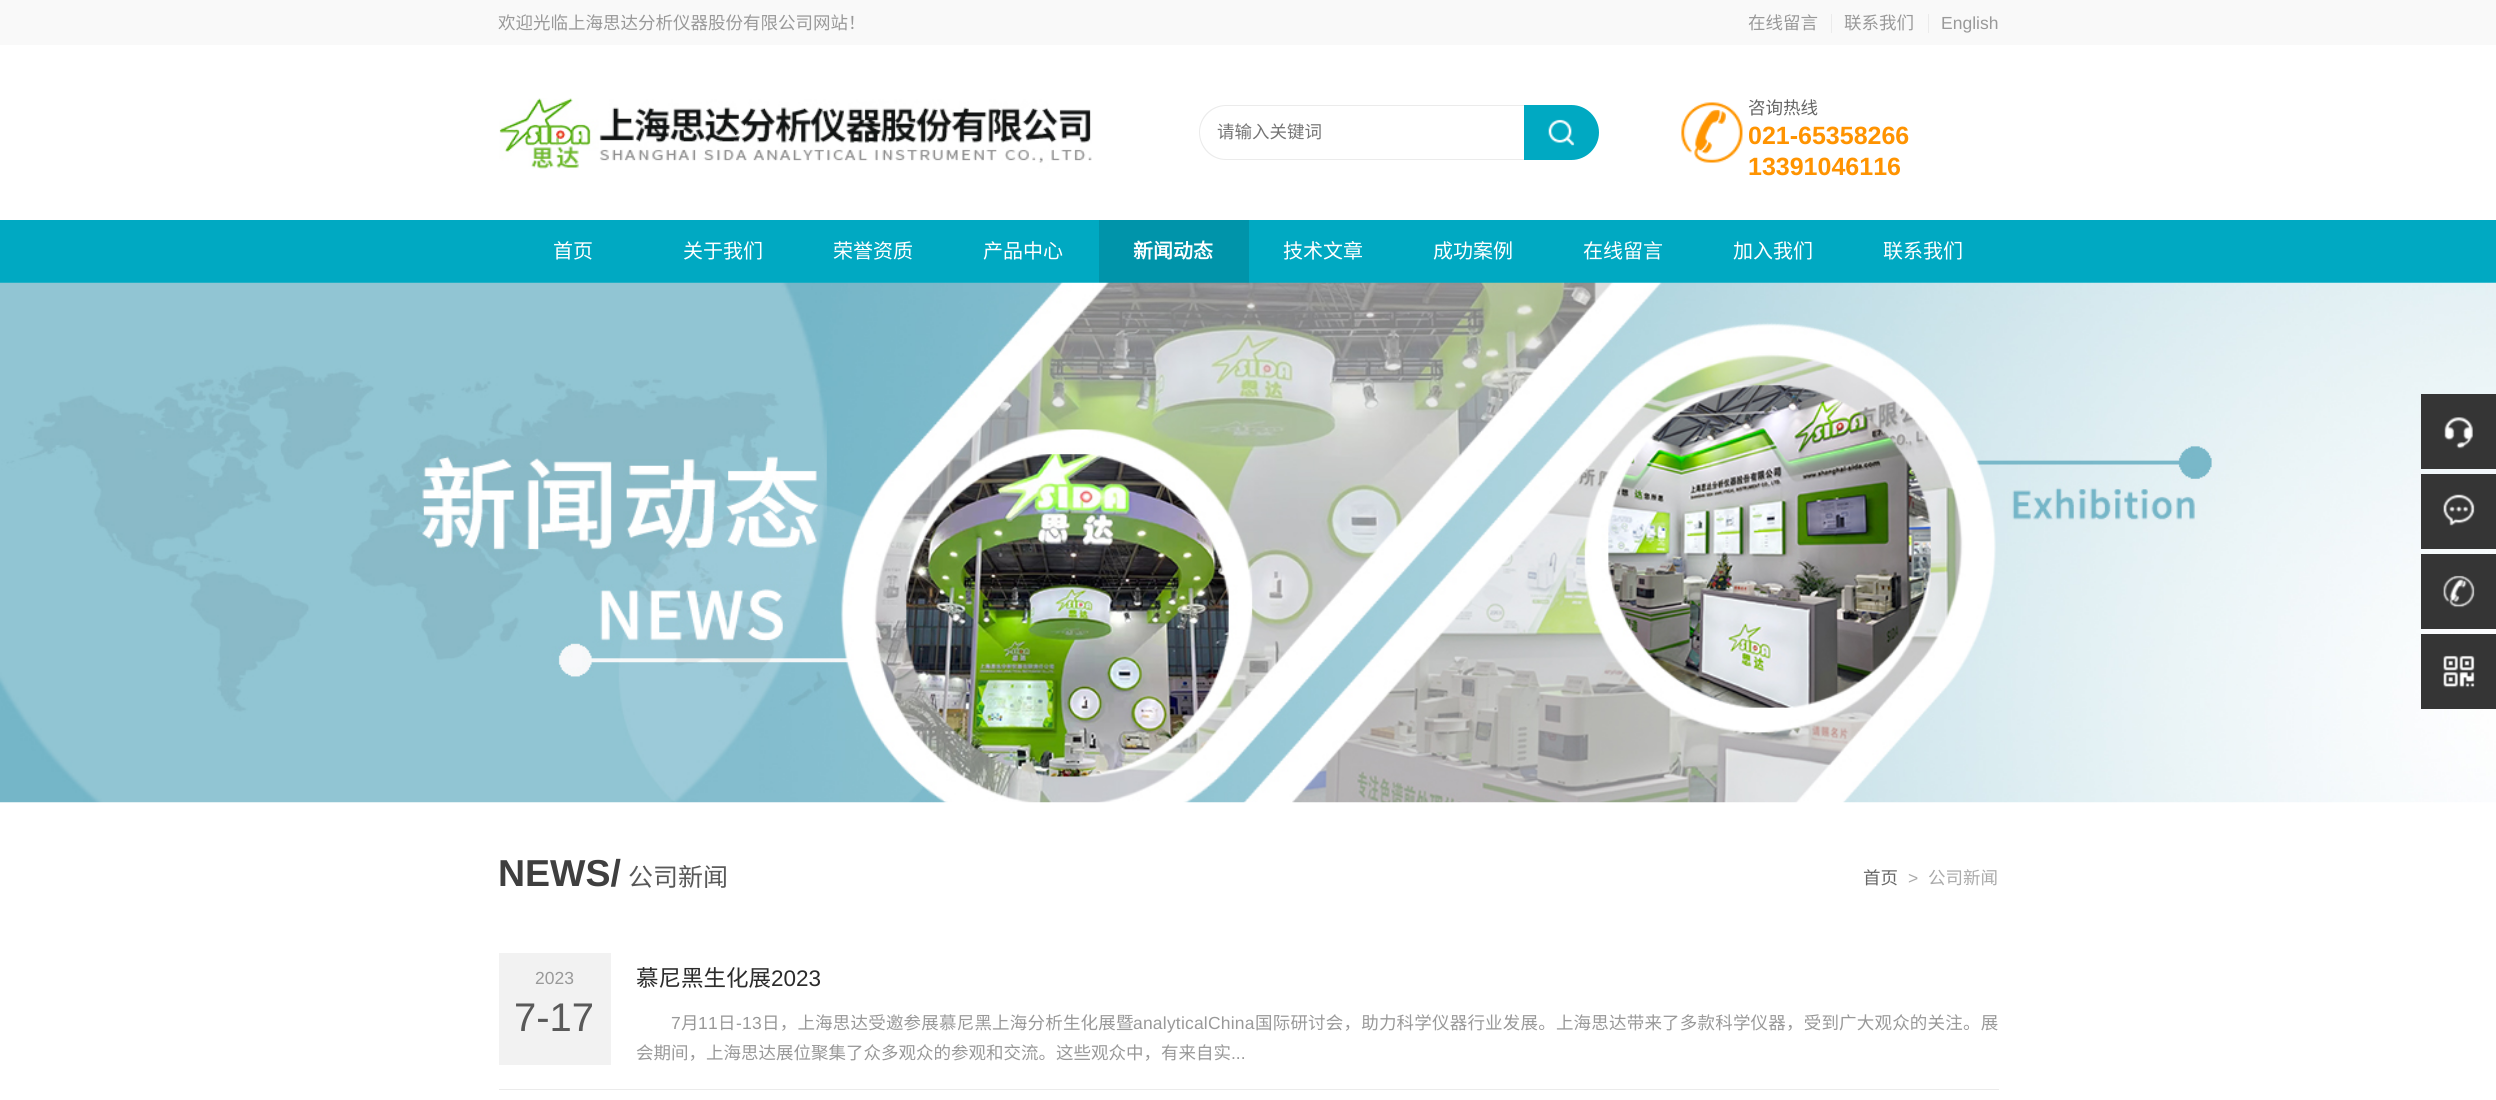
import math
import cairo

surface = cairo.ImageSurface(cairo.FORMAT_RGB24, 2496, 1100)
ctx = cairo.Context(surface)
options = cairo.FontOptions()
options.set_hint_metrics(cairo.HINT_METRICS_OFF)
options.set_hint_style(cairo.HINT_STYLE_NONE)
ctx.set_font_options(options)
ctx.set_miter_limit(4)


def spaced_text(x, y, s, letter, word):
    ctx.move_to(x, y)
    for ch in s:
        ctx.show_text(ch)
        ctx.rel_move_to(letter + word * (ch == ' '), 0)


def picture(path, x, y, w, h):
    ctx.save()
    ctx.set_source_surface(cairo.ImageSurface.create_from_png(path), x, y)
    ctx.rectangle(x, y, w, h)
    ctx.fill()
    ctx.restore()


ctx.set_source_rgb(1, 1, 1)
ctx.paint()
ctx.set_source_rgb(0.973, 0.973, 0.973)
ctx.rectangle(0, 0, 2496, 45)
ctx.fill()
ctx.select_font_face("Noto Sans CJK SC")
ctx.set_font_size(17.5)
ctx.set_source_rgb(0.6, 0.6, 0.6)
ctx.move_to(498, 29)
ctx.show_text("欢迎光临上海思达分析仪器股份有限公司网站！")
ctx.move_to(1748, 29)
ctx.show_text("在线留言")
ctx.set_source_rgb(0.918, 0.918, 0.918)
ctx.rectangle(1831, 14, 1, 19)
ctx.fill()
ctx.set_source_rgb(0.6, 0.6, 0.6)
ctx.move_to(1844, 29)
ctx.show_text("联系我们")
ctx.set_source_rgb(0.918, 0.918, 0.918)
ctx.rectangle(1928, 14, 1, 19)
ctx.fill()
ctx.select_font_face("Liberation Sans")
ctx.set_source_rgb(0.6, 0.6, 0.6)
ctx.move_to(1941, 29)
ctx.show_text("English")
picture("img1.png", 499, 98, 593, 71)
ctx.set_source_rgb(0.918, 0.918, 0.918)
ctx.set_fill_rule(cairo.FILL_RULE_EVEN_ODD)
ctx.new_path()
ctx.move_to(1226, 105)
ctx.line_to(1524, 105)
ctx.line_to(1524, 160)
ctx.line_to(1226, 160)
ctx.curve_to(1211, 160, 1199, 148, 1199, 132)
ctx.curve_to(1199, 117, 1211, 105, 1226, 105)
ctx.close_path()
ctx.move_to(1226, 106)
ctx.line_to(1524, 106)
ctx.line_to(1524, 159)
ctx.line_to(1226, 159)
ctx.curve_to(1212, 159, 1200, 147, 1200, 132)
ctx.curve_to(1200, 118, 1212, 106, 1226, 106)
ctx.close_path()
ctx.fill()
ctx.select_font_face("Noto Sans CJK SC")
ctx.set_source_rgb(0.459, 0.459, 0.459)
ctx.move_to(1217, 138)
ctx.show_text("请输入关键词")
ctx.set_source_rgb(0, 0.663, 0.761)
ctx.new_path()
ctx.move_to(1524, 105)
ctx.line_to(1571.5, 105)
ctx.curve_to(1586.5, 105, 1599, 117.5, 1599, 132.5)
ctx.curve_to(1599, 147.5, 1586.5, 160, 1571.5, 160)
ctx.line_to(1524, 160)
ctx.close_path()
ctx.fill()
picture("img2.png", 1548, 119, 27, 27)
picture("img3.png", 1681, 102, 62, 61)
ctx.set_source_rgb(0.4, 0.4, 0.4)
ctx.move_to(1748, 114)
ctx.show_text("咨询热线")
ctx.select_font_face("Liberation Sans", cairo.FONT_SLANT_NORMAL, cairo.FONT_WEIGHT_BOLD)
ctx.set_font_size(25)
ctx.set_source_rgb(1, 0.576, 0)
ctx.move_to(1748, 144)
ctx.show_text("021-65358266")
ctx.move_to(1748, 175)
ctx.show_text("13391046116")
ctx.set_source_rgb(0, 0.663, 0.761)
ctx.rectangle(0, 220, 2496, 63)
ctx.fill()
ctx.select_font_face("Noto Sans CJK SC")
ctx.set_font_size(20)
ctx.set_source_rgb(1, 1, 1)
ctx.move_to(553, 258)
ctx.show_text("首页")
ctx.move_to(683, 258)
ctx.show_text("关于我们")
ctx.move_to(833, 258)
ctx.show_text("荣誉资质")
ctx.move_to(983, 258)
ctx.show_text("产品中心")
ctx.set_source_rgb(0, 0.58, 0.667)
ctx.rectangle(1099, 220, 150, 63)
ctx.fill()
ctx.select_font_face("Noto Sans CJK SC", cairo.FONT_SLANT_NORMAL, cairo.FONT_WEIGHT_BOLD)
ctx.set_source_rgb(1, 1, 1)
ctx.move_to(1133, 258)
ctx.show_text("新闻动态")
ctx.select_font_face("Noto Sans CJK SC")
ctx.move_to(1283, 258)
ctx.show_text("技术文章")
ctx.move_to(1433, 258)
ctx.show_text("成功案例")
ctx.move_to(1583, 258)
ctx.show_text("在线留言")
ctx.move_to(1733, 258)
ctx.show_text("加入我们")
ctx.move_to(1883, 258)
ctx.show_text("联系我们")
picture("img4.png", 0, 282, 2496, 521)
ctx.set_source_rgb(0.208, 0.208, 0.208)
ctx.rectangle(2421, 394, 75, 75)
ctx.fill()
picture("img5.png", 2444, 417, 29, 32)
ctx.rectangle(2421, 474, 75, 75)
ctx.fill()
picture("img6.png", 2443, 494, 32, 32)
ctx.rectangle(2421, 554, 75, 75)
ctx.fill()
picture("img7.png", 2443, 575, 32, 33)
ctx.rectangle(2421, 634, 75, 75)
ctx.fill()
picture("img8.png", 2443, 655, 32, 33)
ctx.select_font_face("Liberation Sans", cairo.FONT_SLANT_NORMAL, cairo.FONT_WEIGHT_BOLD)
ctx.set_font_size(37.5)
ctx.set_source_rgb(0.247, 0.247, 0.247)
ctx.move_to(498, 886)
ctx.show_text("NEWS/")
ctx.select_font_face("Noto Sans CJK SC")
ctx.set_font_size(25)
ctx.set_source_rgb(0.349, 0.349, 0.349)
ctx.move_to(628, 886)
ctx.show_text("公司新闻")
ctx.set_font_size(17.5)
ctx.set_source_rgb(0.4, 0.4, 0.4)
ctx.move_to(1863, 884)
ctx.show_text("首页")
ctx.select_font_face("Liberation Sans")
ctx.set_source_rgb(0.667, 0.667, 0.667)
ctx.move_to(1908, 884)
ctx.show_text(">")
ctx.select_font_face("Noto Sans CJK SC")
ctx.move_to(1928, 884)
ctx.show_text("公司新闻")
ctx.set_source_rgb(0.918, 0.918, 0.918)
ctx.rectangle(499, 1089, 1500, 1)
ctx.fill()
ctx.set_source_rgb(0.949, 0.949, 0.949)
ctx.rectangle(499, 953, 112, 112)
ctx.fill()
ctx.select_font_face("Liberation Sans")
ctx.set_source_rgb(0.6, 0.6, 0.6)
ctx.move_to(535, 984)
ctx.show_text("2023")
ctx.set_font_size(40)
ctx.set_source_rgb(0.349, 0.349, 0.349)
ctx.move_to(514, 1031)
ctx.show_text("7-17")
ctx.select_font_face("Noto Sans CJK SC")
ctx.set_font_size(22.5)
ctx.set_source_rgb(0.169, 0.169, 0.169)
ctx.move_to(636, 986)
ctx.show_text("慕尼黑生化展")
ctx.select_font_face("Liberation Sans")
ctx.move_to(771, 986)
ctx.show_text("2023")
ctx.set_font_size(17.5)
ctx.set_source_rgb(0.6, 0.6, 0.6)
spaced_text(671, 1029, "7", 0.2, 0)
ctx.select_font_face("Noto Sans CJK SC")
spaced_text(681, 1029, "月", 0.2, 0)
ctx.select_font_face("Liberation Sans")
spaced_text(698, 1029, "11", 0.2, 0)
ctx.select_font_face("Noto Sans CJK SC")
spaced_text(718, 1029, "日", 0.2, 0)
ctx.select_font_face("Liberation Sans")
spaced_text(736, 1029, "-13", 0.2, 0)
ctx.select_font_face("Noto Sans CJK SC")
spaced_text(762, 1029, "日，上海思达受邀参展慕尼黑上海分析生化展暨", 0.2, 0)
ctx.select_font_face("Liberation Sans")
spaced_text(1133, 1029, "analyticalChina", 0.2, 0)
ctx.select_font_face("Noto Sans CJK SC")
spaced_text(1255, 1029, "国际研讨会，助力科学仪器行业发展。上海思达带来了多款科学仪器，受到广大观众的关注。展", 0.2, 0)
ctx.move_to(636, 1059)
ctx.show_text("会期间，上海思达展位聚集了众多观众的参观和交流。这些观众中，有来自实")
ctx.select_font_face("Liberation Sans")
ctx.move_to(1231, 1059)
ctx.show_text("...")
surface.write_to_png("page.png")
